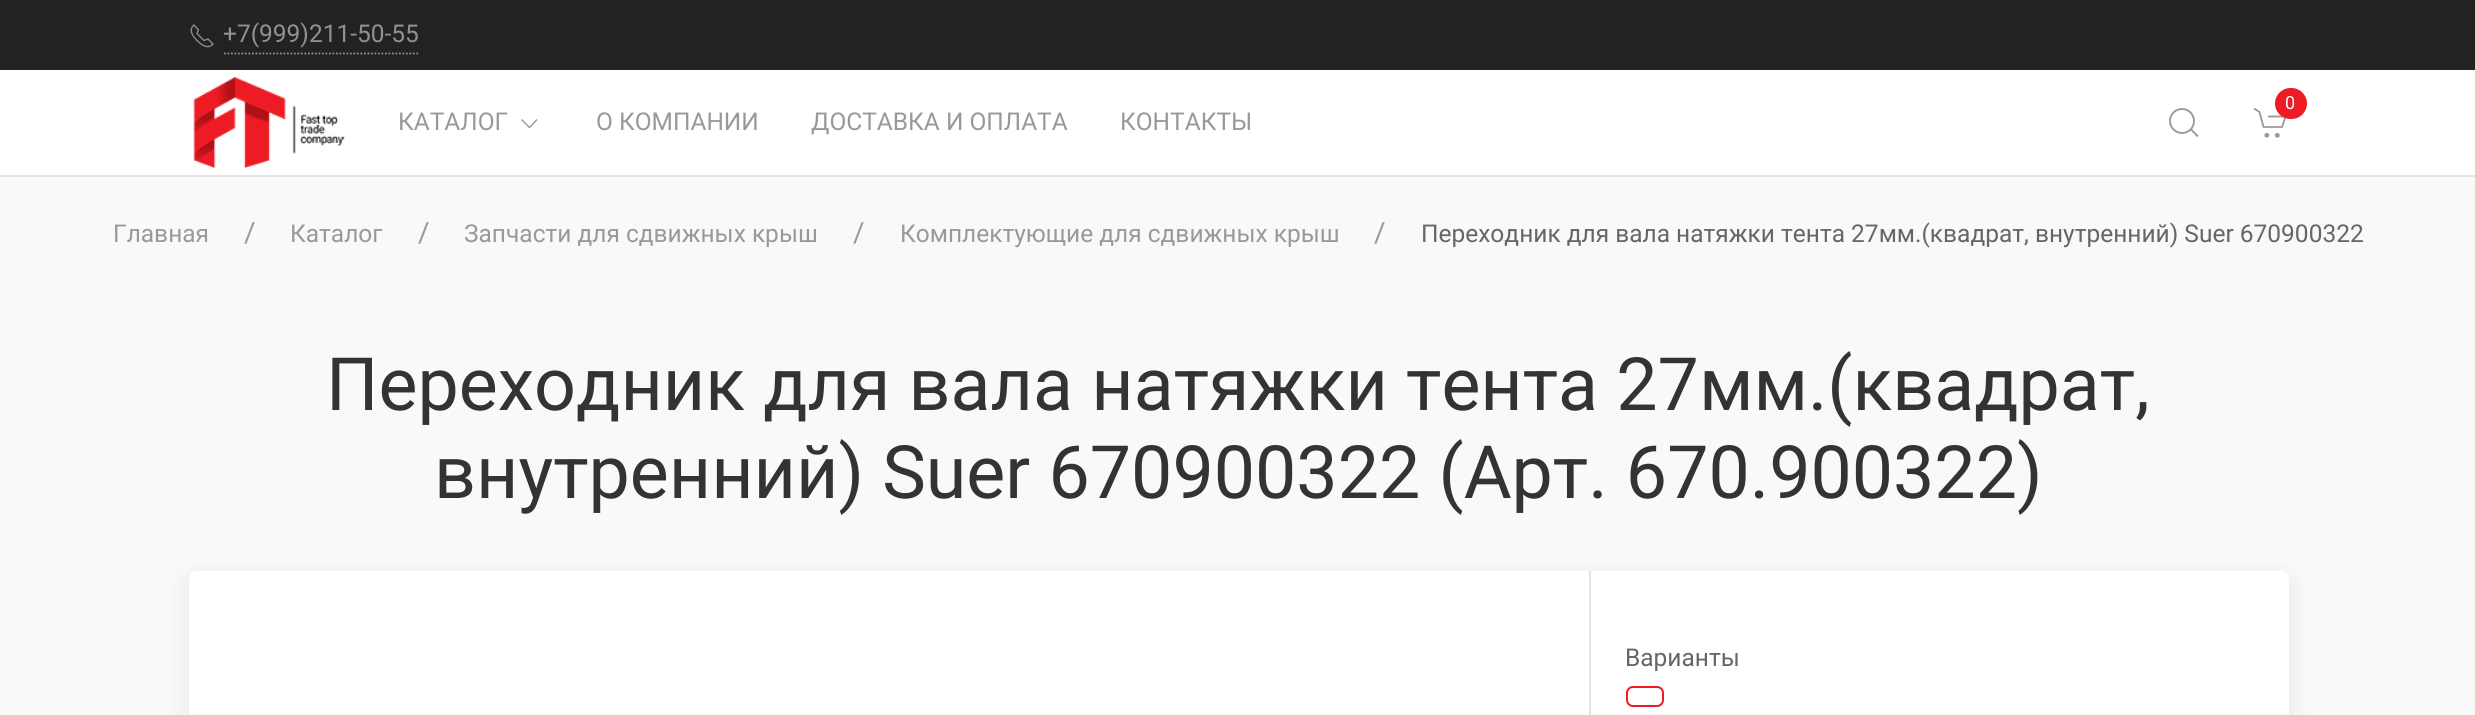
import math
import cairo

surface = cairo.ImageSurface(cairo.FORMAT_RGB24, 2475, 715)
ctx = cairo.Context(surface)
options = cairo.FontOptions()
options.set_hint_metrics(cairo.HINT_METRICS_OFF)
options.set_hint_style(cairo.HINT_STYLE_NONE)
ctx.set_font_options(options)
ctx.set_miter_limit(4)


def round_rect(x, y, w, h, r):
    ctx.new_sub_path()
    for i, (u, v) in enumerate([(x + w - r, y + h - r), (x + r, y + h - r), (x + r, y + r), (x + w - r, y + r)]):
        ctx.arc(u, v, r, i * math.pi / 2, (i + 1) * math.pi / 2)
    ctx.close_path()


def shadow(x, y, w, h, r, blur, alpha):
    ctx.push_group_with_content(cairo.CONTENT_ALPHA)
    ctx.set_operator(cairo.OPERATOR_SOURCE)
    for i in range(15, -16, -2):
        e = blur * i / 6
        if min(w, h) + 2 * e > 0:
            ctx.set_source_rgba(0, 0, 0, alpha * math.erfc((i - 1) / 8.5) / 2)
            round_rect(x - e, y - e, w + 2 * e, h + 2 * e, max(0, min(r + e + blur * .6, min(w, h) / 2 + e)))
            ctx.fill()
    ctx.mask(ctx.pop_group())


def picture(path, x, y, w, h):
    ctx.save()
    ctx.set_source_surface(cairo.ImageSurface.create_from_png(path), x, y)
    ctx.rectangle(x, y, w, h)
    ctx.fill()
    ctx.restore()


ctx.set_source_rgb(0.973, 0.973, 0.973)
ctx.paint()
ctx.set_source_rgb(0.133, 0.133, 0.133)
ctx.rectangle(0, 0, 2475, 70)
ctx.fill()
ctx.new_path()
ctx.move_to(197, 40.5)
ctx.curve_to(201, 44.5, 208, 50, 213, 44)
ctx.line_to(208, 39)
ctx.line_to(204, 40.5)
ctx.line_to(197, 33.5)
ctx.line_to(198.5, 30)
ctx.line_to(194, 25)
ctx.curve_to(188, 30, 193, 36.5, 197, 40.5)
ctx.set_source_rgb(0.569, 0.569, 0.569)
ctx.set_line_width(1.3)
ctx.stroke()
ctx.new_path()
ctx.move_to(224, 53.5)
ctx.line_to(418, 53.5)
ctx.set_line_width(1.8)
ctx.set_dash([1.75, 1.75])
ctx.stroke()
ctx.select_font_face("Roboto")
ctx.set_font_size(24.5)
ctx.move_to(223, 42)
ctx.show_text("+7(999)211-50-55")
ctx.set_source_rgb(1, 1, 1)
ctx.rectangle(0, 70, 2475, 105)
ctx.fill()
ctx.set_source_rgb(0.898, 0.898, 0.898)
ctx.rectangle(0, 175, 2475, 2)
ctx.fill()
ctx.new_path()
ctx.move_to(2254, 108.5)
ctx.line_to(2259.5, 112)
ctx.line_to(2263.5, 127)
ctx.line_to(2282, 127)
ctx.line_to(2285.5, 116.5)
ctx.line_to(2268, 116.5)
ctx.set_source_rgb(0.6, 0.6, 0.6)
ctx.set_dash([])
ctx.stroke()
ctx.set_source_rgb(0.929, 0.11, 0.141)
round_rect(2275, 88, 32, 31, 15.5)
ctx.fill()
ctx.set_font_size(18)
ctx.set_source_rgb(1, 1, 1)
ctx.move_to(2285, 109)
ctx.show_text("0")
ctx.set_source_rgb(0.6, 0.6, 0.6)
ctx.new_path()
ctx.arc(2266.8, 135.3, 2.4, 0, 2 * math.pi)
ctx.fill()
ctx.arc(2277.3, 135.3, 2.4, 0, 2 * math.pi)
ctx.fill()
ctx.arc(2182, 121, 12, 0, 2 * math.pi)
ctx.set_line_width(1.9)
ctx.stroke()
ctx.new_path()
ctx.move_to(2191, 129.5)
ctx.line_to(2198, 136.5)
ctx.close_path()
ctx.stroke()
picture("img1.png", 193, 77, 152, 91)
ctx.set_font_size(24.5)
ctx.move_to(398, 130)
ctx.show_text("КАТАЛОГ")
ctx.new_path()
ctx.move_to(537, 119.5)
ctx.line_to(529.5, 127.5)
ctx.line_to(521.5, 119.5)
ctx.set_line_width(1.4)
ctx.stroke()
ctx.move_to(596, 130)
ctx.show_text("О КОМПАНИИ")
ctx.move_to(811, 130)
ctx.show_text("ДОСТАВКА И ОПЛАТА")
ctx.move_to(1120, 130)
ctx.show_text("КОНТАКТЫ")
ctx.move_to(113, 242)
ctx.show_text("Главная")
ctx.set_font_size(28)
ctx.move_to(244, 242)
ctx.show_text("/")
ctx.set_font_size(24.5)
ctx.move_to(290, 242)
ctx.show_text("Каталог")
ctx.set_font_size(28)
ctx.move_to(418, 242)
ctx.show_text("/")
ctx.set_font_size(24.5)
ctx.move_to(464, 242)
ctx.show_text("Запчасти для сдвижных крыш")
ctx.set_font_size(28)
ctx.move_to(853, 242)
ctx.show_text("/")
ctx.set_font_size(24.5)
ctx.move_to(900, 242)
ctx.show_text("Комплектующие для сдвижных крыш")
ctx.set_font_size(28)
ctx.move_to(1374, 242)
ctx.show_text("/")
ctx.set_font_size(24.5)
ctx.set_source_rgb(0.4, 0.4, 0.4)
ctx.move_to(1421, 242)
ctx.show_text("Переходник для вала натяжки тента 27мм.(квадрат, внутренний) Suer 670900322")
ctx.set_font_size(73.5)
ctx.set_source_rgb(0.2, 0.2, 0.2)
ctx.move_to(326, 410)
ctx.show_text("Переходник для вала натяжки тента 27мм.(квадрат,")
ctx.move_to(434, 498)
ctx.show_text("внутренний) Suer 670900322 (Арт. 670.900322)")
ctx.set_source_rgb(0, 0, 0)
shadow(189, 579, 2100, 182, 7, 13, 0.08)
ctx.set_source_rgb(1, 1, 1)
round_rect(189, 571, 2100, 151, 7)
ctx.fill()
ctx.set_source_rgb(0.898, 0.898, 0.898)
ctx.rectangle(1589, 571, 2, 144)
ctx.fill()
ctx.set_font_size(24.5)
ctx.set_source_rgb(0.4, 0.4, 0.4)
ctx.move_to(1625, 666)
ctx.show_text("Варианты")
round_rect(1627, 687, 36, 19, 6)
ctx.set_source_rgb(0.929, 0.11, 0.141)
ctx.set_line_width(2)
ctx.stroke()
surface.write_to_png("page.png")
